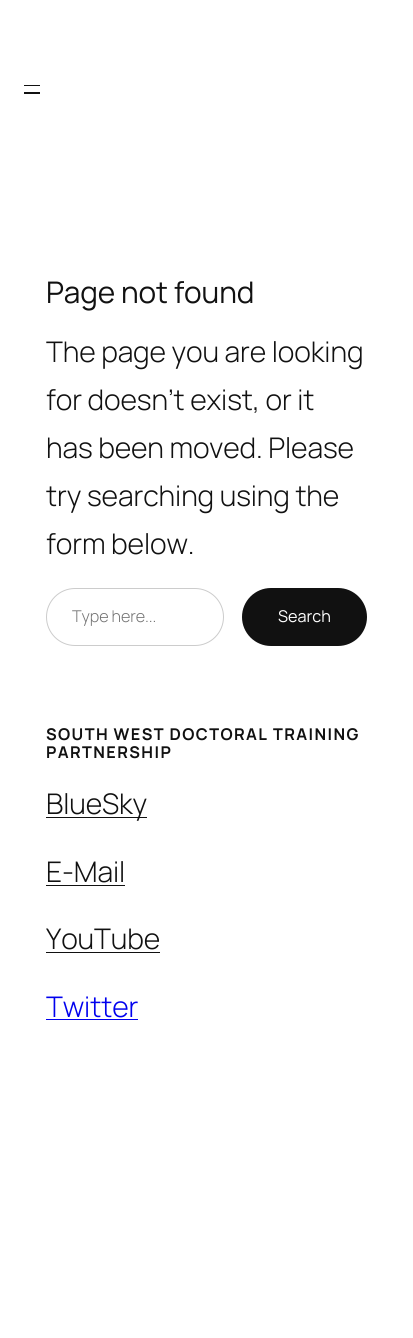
import math
import cairo

surface = cairo.ImageSurface(cairo.FORMAT_RGB24, 413, 1338)
ctx = cairo.Context(surface)
options = cairo.FontOptions()
options.set_hint_metrics(cairo.HINT_METRICS_OFF)
options.set_hint_style(cairo.HINT_STYLE_NONE)
ctx.set_font_options(options)
ctx.set_miter_limit(4)


def spaced_text(x, y, s, letter, word):
    ctx.move_to(x, y)
    for ch in s:
        ctx.show_text(ch)
        ctx.rel_move_to(letter + word * (ch == ' '), 0)


def round_rect(x, y, w, h, r):
    ctx.new_sub_path()
    for i, (u, v) in enumerate([(x + w - r, y + h - r), (x + r, y + h - r), (x + r, y + r), (x + w - r, y + r)]):
        ctx.arc(u, v, r, i * math.pi / 2, (i + 1) * math.pi / 2)
    ctx.close_path()


ctx.set_source_rgb(1, 1, 1)
ctx.paint()
ctx.set_source_rgb(0.067, 0.067, 0.067)
ctx.rectangle(24, 85, 16, 1)
ctx.fill()
ctx.rectangle(24, 92, 16, 2)
ctx.fill()
ctx.select_font_face("Manrope")
ctx.set_font_size(29.75)
spaced_text(46, 303, "Page not found", -0.1, 0)
ctx.select_font_face("Manrope Light")
ctx.set_font_size(28.4)
spaced_text(46, 362, "The page you are looking", -0.1, 0)
spaced_text(46, 410, "for doesn’t exist, or it", -0.1, 0)
spaced_text(46, 458, "has been moved. Please", -0.1, 0)
spaced_text(46, 506, "try searching using the", -0.1, 0)
spaced_text(46, 554, "form below.", -0.1, 0)
round_rect(46.5, 588.5, 177, 57, 28.5)
ctx.set_source_rgb(0.8, 0.8, 0.8)
ctx.set_line_width(1)
ctx.stroke()
ctx.set_font_size(16.2)
ctx.set_source_rgb(0.459, 0.459, 0.459)
spaced_text(72, 622, "Type here...", -0.1, 0)
ctx.set_source_rgb(0.067, 0.067, 0.067)
round_rect(242, 588, 125, 58, 29)
ctx.fill()
ctx.select_font_face("Manrope")
ctx.set_source_rgb(1, 1, 1)
ctx.move_to(278, 622)
ctx.show_text("Search")
ctx.select_font_face("Manrope", cairo.FONT_SLANT_NORMAL, cairo.FONT_WEIGHT_BOLD)
ctx.set_source_rgb(0.067, 0.067, 0.067)
spaced_text(46, 740, "SOUTH WEST DOCTORAL TRAINING", 1.4, 0)
spaced_text(46, 758, "PARTNERSHIP", 1.4, 0)
ctx.rectangle(46, 817, 101, 1)
ctx.fill()
ctx.select_font_face("Manrope Light")
ctx.set_font_size(28.4)
spaced_text(46, 814, "BlueSky", -0.1, 0)
spaced_text(46, 882, "E-Mail", -0.1, 0)
ctx.rectangle(46, 885, 79, 1)
ctx.fill()
spaced_text(46, 949, "YouTube", -0.1, 0)
ctx.rectangle(46, 952, 114, 1)
ctx.fill()
ctx.set_source_rgb(0, 0, 0.933)
spaced_text(46, 1017, "Twitter", -0.1, 0)
ctx.rectangle(46, 1019, 92, 1)
ctx.fill()
surface.write_to_png("page.png")
